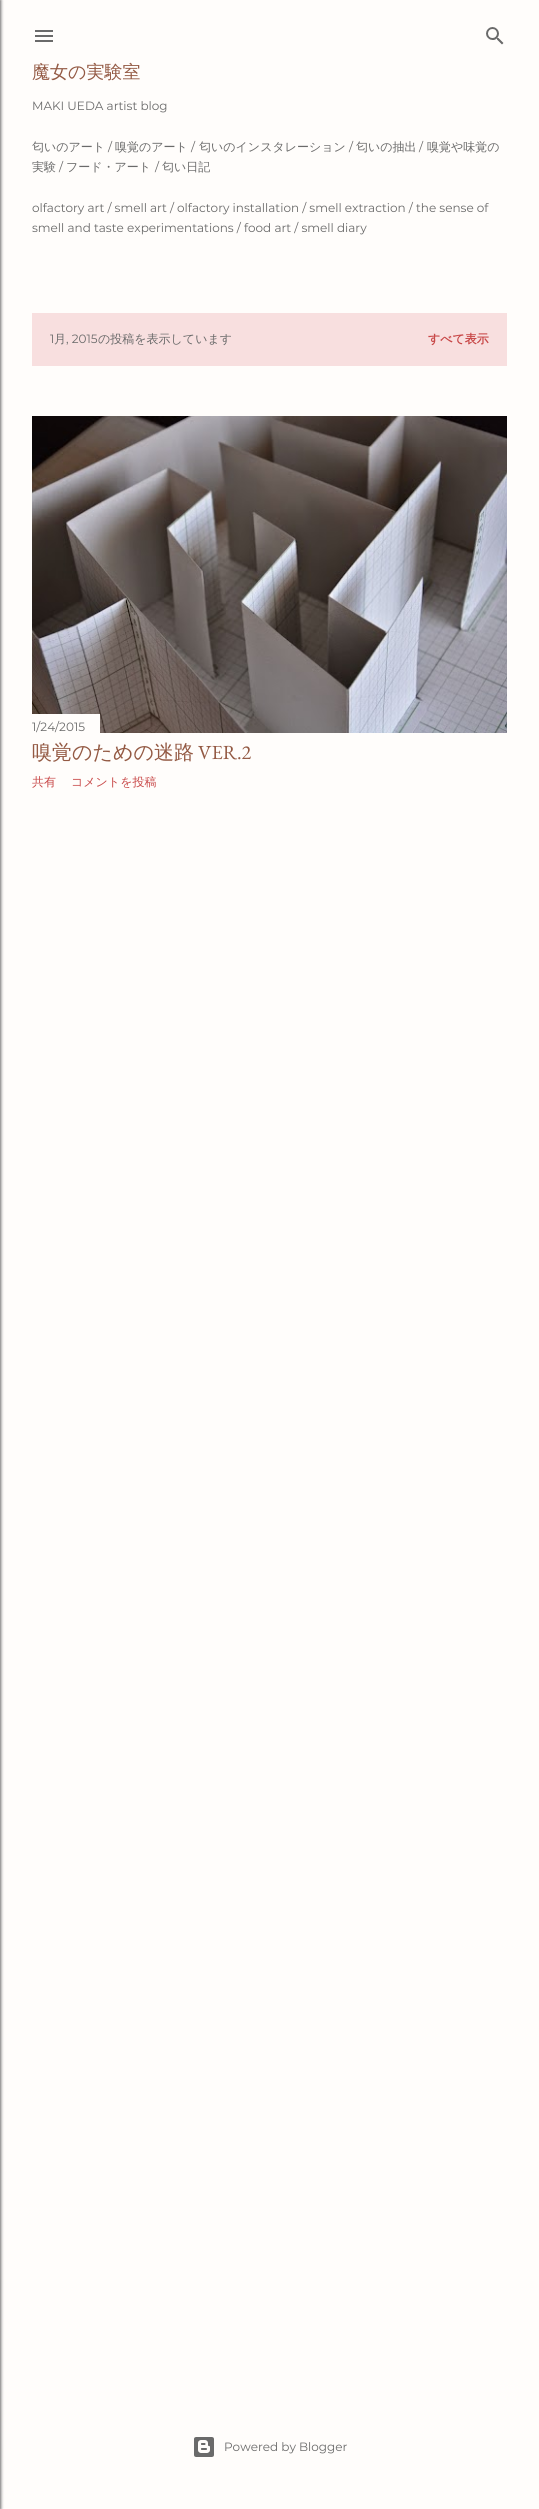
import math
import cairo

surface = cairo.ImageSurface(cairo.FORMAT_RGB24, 539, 2509)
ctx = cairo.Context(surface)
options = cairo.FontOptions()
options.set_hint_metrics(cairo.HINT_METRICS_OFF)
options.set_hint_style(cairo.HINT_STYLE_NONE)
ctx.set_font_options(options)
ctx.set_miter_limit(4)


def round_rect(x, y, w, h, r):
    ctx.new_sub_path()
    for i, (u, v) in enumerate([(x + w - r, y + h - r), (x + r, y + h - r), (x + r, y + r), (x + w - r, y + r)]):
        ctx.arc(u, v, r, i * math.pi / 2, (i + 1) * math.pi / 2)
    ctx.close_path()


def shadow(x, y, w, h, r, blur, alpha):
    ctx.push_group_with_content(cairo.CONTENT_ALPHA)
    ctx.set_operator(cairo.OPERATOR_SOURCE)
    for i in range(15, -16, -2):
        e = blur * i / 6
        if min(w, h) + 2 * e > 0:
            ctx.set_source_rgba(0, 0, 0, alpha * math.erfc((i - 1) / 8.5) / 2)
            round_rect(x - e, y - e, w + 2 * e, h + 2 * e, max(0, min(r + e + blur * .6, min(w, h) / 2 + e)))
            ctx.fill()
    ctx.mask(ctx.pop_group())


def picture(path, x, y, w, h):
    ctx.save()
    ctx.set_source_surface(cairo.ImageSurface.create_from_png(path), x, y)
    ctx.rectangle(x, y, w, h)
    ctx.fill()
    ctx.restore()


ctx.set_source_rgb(1, 0.992, 0.984)
ctx.paint()
ctx.set_source_rgb(0.416, 0.416, 0.416)
shadow(-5, 0, 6, 2509, 0, 1.5, 1)
picture("img1.png", 35, 30, 18, 12)
picture("img2.png", 486, 27, 18, 18)
ctx.select_font_face("WenQuanYi Zen Hei Medium")
ctx.set_font_size(18)
ctx.set_source_rgb(0.576, 0.349, 0.263)
ctx.move_to(32, 78)
ctx.show_text("魔女の実験室")
ctx.select_font_face("Montserrat")
ctx.set_font_size(12)
ctx.set_source_rgb(0.416, 0.416, 0.416)
ctx.move_to(32, 110)
ctx.show_text("MAKI UEDA artist blog")
ctx.select_font_face("WenQuanYi Zen Hei Medium")
ctx.move_to(32, 151)
ctx.show_text("匂いのアート")
ctx.select_font_face("Montserrat")
ctx.move_to(108, 151)
ctx.show_text("/")
ctx.select_font_face("WenQuanYi Zen Hei Medium")
ctx.move_to(115, 151)
ctx.show_text("嗅覚のアート")
ctx.select_font_face("Montserrat")
ctx.move_to(191, 151)
ctx.show_text("/")
ctx.select_font_face("WenQuanYi Zen Hei Medium")
ctx.move_to(199, 151)
ctx.show_text("匂いのインスタレーション")
ctx.select_font_face("Montserrat")
ctx.move_to(349, 151)
ctx.show_text("/")
ctx.select_font_face("WenQuanYi Zen Hei Medium")
ctx.move_to(356, 151)
ctx.show_text("匂いの抽出")
ctx.select_font_face("Montserrat")
ctx.move_to(419, 151)
ctx.show_text("/")
ctx.select_font_face("WenQuanYi Zen Hei Medium")
ctx.move_to(427, 151)
ctx.show_text("嗅覚や味覚の")
ctx.move_to(32, 171)
ctx.show_text("実験")
ctx.select_font_face("Montserrat")
ctx.move_to(59, 171)
ctx.show_text("/")
ctx.select_font_face("WenQuanYi Zen Hei Medium")
ctx.move_to(66, 171)
ctx.show_text("フード・アート")
ctx.select_font_face("Montserrat")
ctx.move_to(155, 171)
ctx.show_text("/")
ctx.select_font_face("WenQuanYi Zen Hei Medium")
ctx.move_to(162, 171)
ctx.show_text("匂い日記")
ctx.select_font_face("Montserrat")
ctx.move_to(32, 212)
ctx.show_text("olfactory art / smell art / olfactory installation / smell extraction / the sense of")
ctx.move_to(32, 232)
ctx.show_text("smell and taste experimentations / food art / smell diary")
ctx.set_source_rgb(0.969, 0.875, 0.875)
ctx.rectangle(32, 313, 475, 53)
ctx.fill()
ctx.set_source_rgb(0.416, 0.416, 0.416)
ctx.move_to(50, 343)
ctx.show_text("1")
ctx.select_font_face("WenQuanYi Zen Hei Medium")
ctx.move_to(54, 343)
ctx.show_text("月")
ctx.select_font_face("Montserrat")
ctx.move_to(66, 343)
ctx.show_text(", 2015")
ctx.select_font_face("WenQuanYi Zen Hei Medium")
ctx.move_to(98, 343)
ctx.show_text("の投稿を表示しています")
ctx.select_font_face("WenQuanYi Zen Hei", cairo.FONT_SLANT_NORMAL, cairo.FONT_WEIGHT_BOLD)
ctx.set_source_rgb(0.784, 0.282, 0.282)
ctx.move_to(428, 343)
ctx.show_text("すべて表示")
picture("img3.png", 32, 416, 475, 317)
ctx.set_source_rgb(1, 0.992, 0.984)
ctx.rectangle(32, 714, 68, 19)
ctx.fill()
ctx.select_font_face("Montserrat")
ctx.set_source_rgb(0.416, 0.416, 0.416)
ctx.move_to(32, 731)
ctx.show_text("1/24/2015")
ctx.select_font_face("WenQuanYi Zen Hei Medium")
ctx.set_font_size(20)
ctx.set_source_rgb(0.576, 0.349, 0.263)
ctx.move_to(32, 759)
ctx.show_text("嗅覚のための迷路")
ctx.select_font_face("EB Garamond")
ctx.move_to(198, 759)
ctx.show_text("VER.2")
ctx.select_font_face("WenQuanYi Zen Hei Medium")
ctx.set_font_size(12)
ctx.set_source_rgb(0.784, 0.282, 0.282)
ctx.move_to(32, 786)
ctx.show_text("共有")
ctx.move_to(71, 786)
ctx.show_text("コメントを投稿")
picture("img4.png", 194, 2437, 20, 20)
ctx.select_font_face("Montserrat")
ctx.set_source_rgb(0.416, 0.416, 0.416)
ctx.move_to(224, 2451)
ctx.show_text("Powered by Blogger")
surface.write_to_png("page.png")
